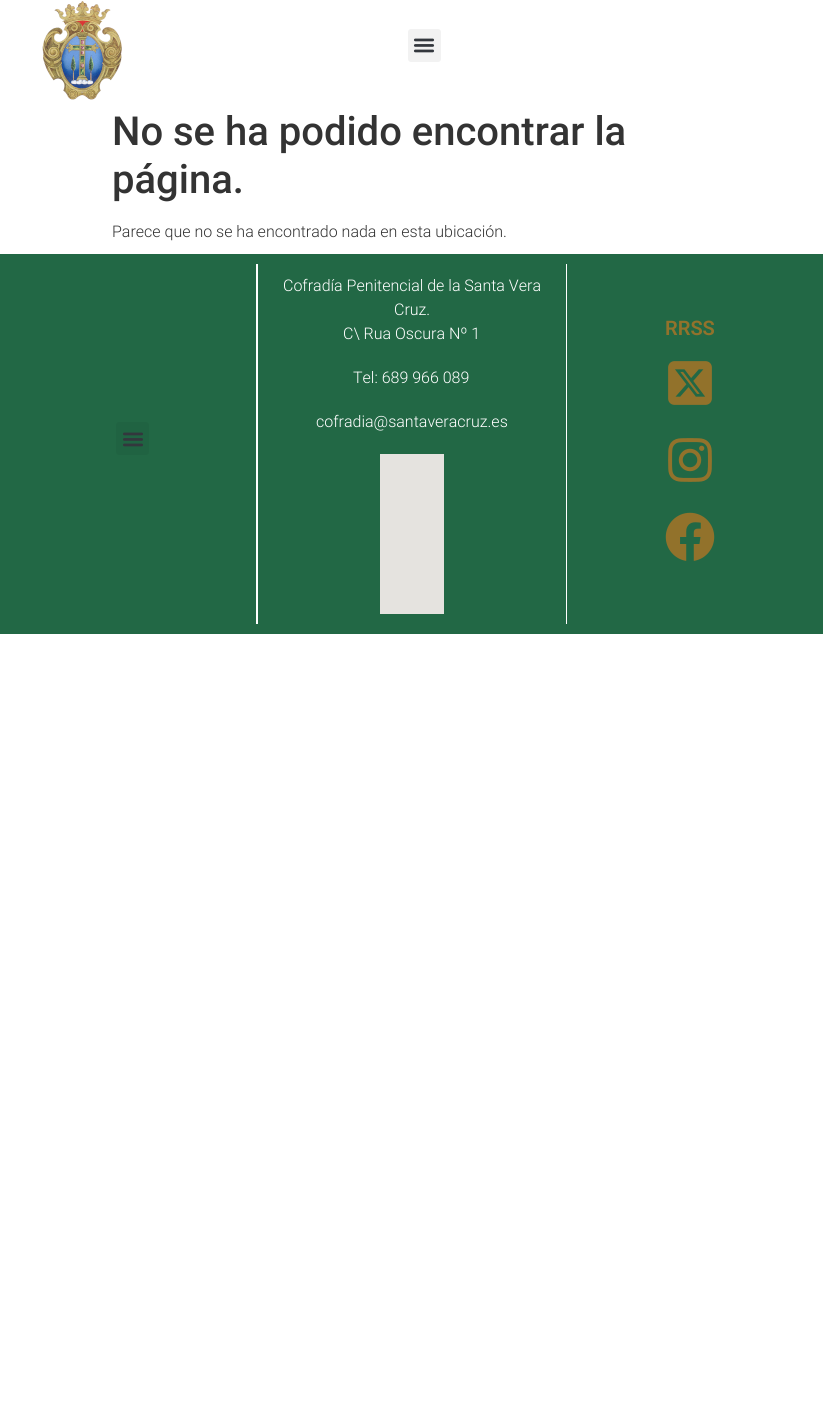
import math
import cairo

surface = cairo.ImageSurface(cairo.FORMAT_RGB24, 823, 1423)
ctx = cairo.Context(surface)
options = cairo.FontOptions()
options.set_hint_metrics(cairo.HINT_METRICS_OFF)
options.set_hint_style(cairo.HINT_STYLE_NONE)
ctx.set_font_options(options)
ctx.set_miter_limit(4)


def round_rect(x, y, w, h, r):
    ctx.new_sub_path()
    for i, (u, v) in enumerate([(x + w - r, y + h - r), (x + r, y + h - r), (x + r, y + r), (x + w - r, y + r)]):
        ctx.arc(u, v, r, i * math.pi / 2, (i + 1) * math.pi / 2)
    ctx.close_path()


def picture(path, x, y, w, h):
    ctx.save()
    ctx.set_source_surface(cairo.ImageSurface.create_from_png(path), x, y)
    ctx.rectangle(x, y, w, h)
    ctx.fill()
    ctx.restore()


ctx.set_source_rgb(1, 1, 1)
ctx.paint()
picture("img1.png", 42, 1, 80, 99)
ctx.set_source_rgb(0.949, 0.949, 0.949)
round_rect(408, 29, 33, 33, 3)
ctx.fill()
picture("img2.png", 413, 38, 22, 15)
ctx.select_font_face("Roboto Medium")
ctx.set_font_size(40)
ctx.set_source_rgb(0.2, 0.2, 0.2)
ctx.move_to(112, 145)
ctx.show_text("No se ha podido encontrar la")
ctx.move_to(112, 193)
ctx.show_text("página.")
ctx.select_font_face("Roboto Light")
ctx.set_font_size(16)
ctx.move_to(112, 237)
ctx.show_text("Parece que no se ha encontrado nada en esta ubicación.")
ctx.set_source_rgb(0.133, 0.408, 0.271)
ctx.rectangle(0, 254, 823, 380)
ctx.fill()
ctx.set_source_rgb(1, 1, 1)
ctx.rectangle(256, 264, 2, 360)
ctx.fill()
ctx.set_source_rgb(0.125, 0.388, 0.259)
round_rect(116, 422, 33, 33, 3)
ctx.fill()
picture("img3.png", 123, 432, 20, 15)
ctx.set_source_rgb(1, 1, 1)
ctx.move_to(283, 291)
ctx.show_text("Cofradía Penitencial de la Santa Vera")
ctx.move_to(394, 315)
ctx.show_text("Cruz.")
ctx.move_to(343, 339)
ctx.show_text("C\\ Rua Oscura Nº 1")
ctx.move_to(353, 383)
ctx.show_text("Tel: 689 966 089")
ctx.move_to(316, 427)
ctx.show_text("cofradia@santaveracruz.es")
ctx.set_source_rgb(0.898, 0.89, 0.875)
ctx.rectangle(380, 454, 64, 160)
ctx.fill()
ctx.set_source_rgb(1, 1, 1)
ctx.rectangle(566, 264, 1, 360)
ctx.fill()
ctx.select_font_face("Roboto SemiBold")
ctx.set_font_size(20)
ctx.set_source_rgb(0.573, 0.447, 0.169)
ctx.move_to(665, 335)
ctx.show_text("RRSS")
picture("img4.png", 668, 361, 44, 44)
picture("img5.png", 668, 438, 44, 44)
picture("img6.png", 665, 512, 50, 49)
surface.write_to_png("page.png")
